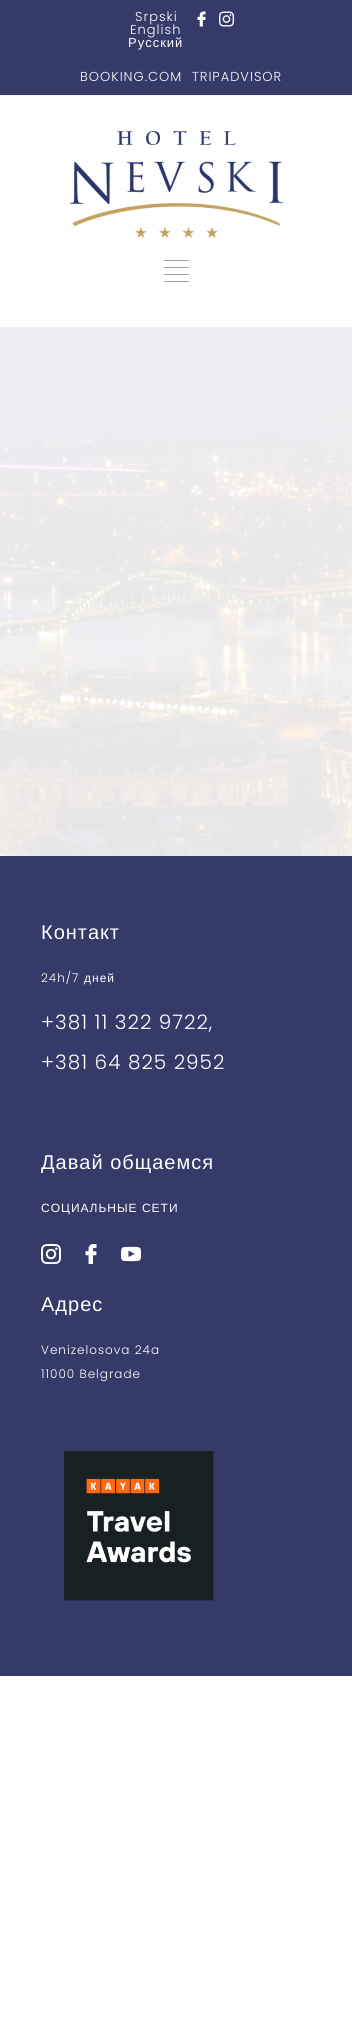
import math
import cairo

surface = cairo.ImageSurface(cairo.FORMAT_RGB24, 352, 2036)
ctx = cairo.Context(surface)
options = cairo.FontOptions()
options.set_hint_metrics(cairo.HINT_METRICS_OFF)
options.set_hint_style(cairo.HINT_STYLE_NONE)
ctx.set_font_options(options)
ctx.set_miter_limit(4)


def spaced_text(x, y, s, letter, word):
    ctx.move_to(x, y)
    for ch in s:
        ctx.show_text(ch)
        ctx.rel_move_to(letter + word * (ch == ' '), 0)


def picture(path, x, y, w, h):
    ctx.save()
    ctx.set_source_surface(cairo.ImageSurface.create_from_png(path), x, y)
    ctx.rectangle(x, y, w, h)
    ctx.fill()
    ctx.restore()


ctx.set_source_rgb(1, 1, 1)
ctx.paint()
ctx.set_source_rgb(0.204, 0.231, 0.412)
ctx.rectangle(0, 0, 352, 95)
ctx.fill()
ctx.select_font_face("Poppins Light")
ctx.set_font_size(13)
ctx.set_source_rgb(1, 1, 1)
spaced_text(135, 21, "Srpski", 1, 0)
spaced_text(130, 34, "English", 1, 0)
ctx.select_font_face("Liberation Sans")
spaced_text(128, 47, "Русский", 1, 0)
picture("img1.png", 197, 11, 9, 16)
picture("img2.png", 219, 11, 15, 16)
ctx.select_font_face("Poppins Light")
spaced_text(80, 81, "BOOKING.COM", 1, 0)
spaced_text(192, 81, "TRIPADVISOR", 1, 0)
ctx.set_source_rgb(0.945, 0.945, 0.945)
ctx.rectangle(0, 95, 352, 1)
ctx.fill()
ctx.rectangle(0, 327, 352, 1)
ctx.fill()
picture("img3.png", 70, 131, 213, 107)
ctx.set_source_rgb(0.639, 0.639, 0.639)
ctx.rectangle(164, 260, 25, 1)
ctx.fill()
ctx.rectangle(164, 267, 25, 1)
ctx.fill()
ctx.rectangle(164, 274, 25, 1)
ctx.fill()
ctx.rectangle(164, 281, 25, 1)
ctx.fill()
picture("img4.png", 0, 328, 352, 528)
ctx.set_source_rgb(0.204, 0.231, 0.412)
ctx.rectangle(0, 856, 352, 820)
ctx.fill()
ctx.select_font_face("Liberation Sans")
ctx.set_font_size(20)
ctx.set_source_rgb(1, 1, 1)
spaced_text(41, 939, "Контакт", 1, 0)
ctx.select_font_face("Poppins Light")
ctx.set_font_size(12)
spaced_text(41, 982, "24h/7", 1, 0)
ctx.select_font_face("Liberation Sans")
spaced_text(84, 982, "дней", 1, 0)
ctx.select_font_face("Poppins Light")
ctx.set_font_size(20)
spaced_text(41, 1029, "+381 11 322 9722,", 1, 0)
spaced_text(41, 1069, "+381 64 825 2952", 1, 0)
ctx.select_font_face("Liberation Sans")
spaced_text(41, 1169, "Давай общаемся", 1, 0)
ctx.set_font_size(12)
spaced_text(41, 1212, "СОЦИАЛЬНЫЕ СЕТИ", 1, 0)
picture("img5.png", 41, 1244, 20, 20)
picture("img6.png", 85, 1244, 12, 20)
picture("img7.png", 121, 1246, 20, 16)
ctx.set_font_size(20)
spaced_text(41, 1311, "Адрес", 1, 0)
ctx.select_font_face("Poppins Light")
ctx.set_font_size(12)
spaced_text(41, 1354, "Venizelosova 24a", 1, 0)
spaced_text(41, 1378, "11000 Belgrade", 1, 0)
picture("img8.png", 64, 1451, 150, 150)
surface.write_to_png("page.png")
